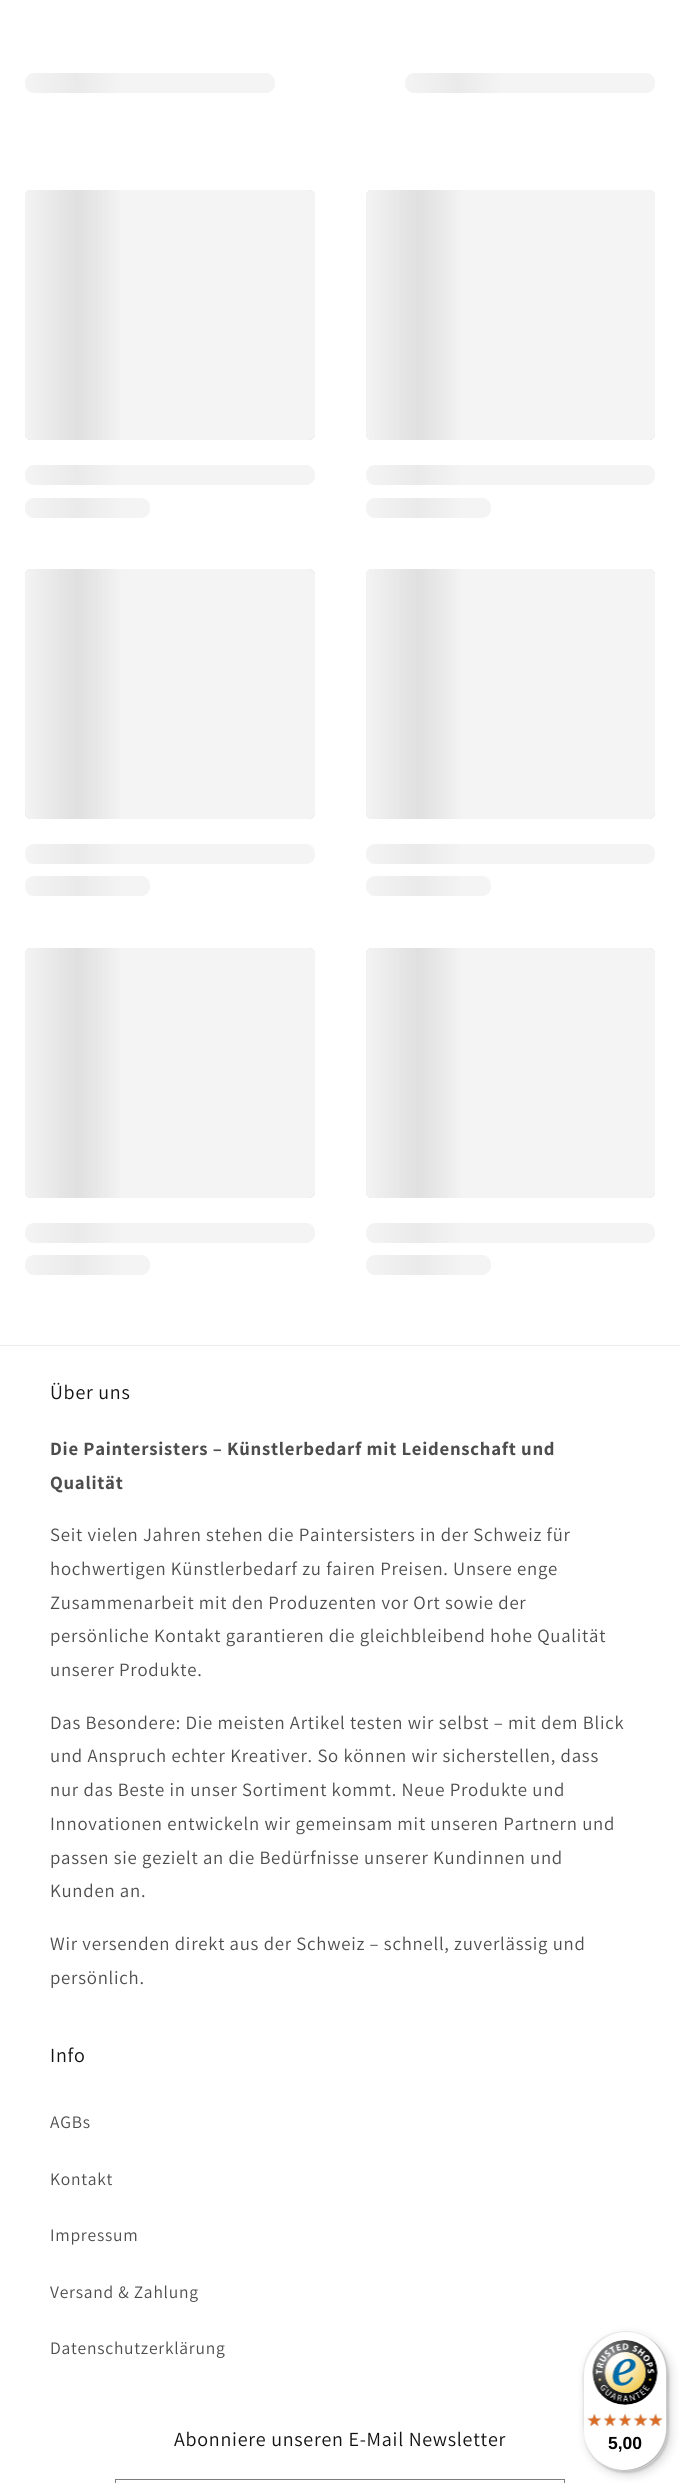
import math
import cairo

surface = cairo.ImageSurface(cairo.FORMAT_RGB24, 680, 2483)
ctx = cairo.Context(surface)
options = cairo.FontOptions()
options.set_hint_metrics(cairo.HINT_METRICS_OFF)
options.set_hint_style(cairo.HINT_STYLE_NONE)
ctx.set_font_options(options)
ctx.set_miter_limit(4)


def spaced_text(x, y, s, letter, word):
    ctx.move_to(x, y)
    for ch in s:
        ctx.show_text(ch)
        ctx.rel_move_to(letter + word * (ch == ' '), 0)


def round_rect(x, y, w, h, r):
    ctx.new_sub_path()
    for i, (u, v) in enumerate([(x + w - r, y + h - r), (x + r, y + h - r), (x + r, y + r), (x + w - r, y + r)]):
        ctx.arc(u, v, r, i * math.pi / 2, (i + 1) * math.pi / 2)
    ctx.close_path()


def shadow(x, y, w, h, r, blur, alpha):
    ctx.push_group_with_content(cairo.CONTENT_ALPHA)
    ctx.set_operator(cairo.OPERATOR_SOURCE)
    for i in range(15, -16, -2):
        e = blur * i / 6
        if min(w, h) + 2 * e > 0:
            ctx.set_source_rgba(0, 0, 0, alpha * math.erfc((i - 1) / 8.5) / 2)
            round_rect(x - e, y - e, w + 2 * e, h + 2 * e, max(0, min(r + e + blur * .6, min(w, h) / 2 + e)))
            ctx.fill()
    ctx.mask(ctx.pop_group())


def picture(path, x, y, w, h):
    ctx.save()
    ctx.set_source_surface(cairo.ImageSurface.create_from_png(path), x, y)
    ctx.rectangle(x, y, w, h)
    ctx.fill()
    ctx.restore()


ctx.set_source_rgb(1, 1, 1)
ctx.paint()
gradient = cairo.LinearGradient(25, 83, 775, 82)
gradient.add_color_stop_rgba(0, 0.957, 0.957, 0.957, 1)
gradient.add_color_stop_rgba(0.07, 0.918, 0.918, 0.918, 1)
gradient.add_color_stop_rgba(0.13, 0.957, 0.957, 0.957, 1)
ctx.set_source(gradient)
round_rect(25, 73, 250, 20, 9)
ctx.fill()
gradient = cairo.LinearGradient(405, 83, 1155, 82)
gradient.add_color_stop_rgba(0, 0.957, 0.957, 0.957, 1)
gradient.add_color_stop_rgba(0.07, 0.918, 0.918, 0.918, 1)
gradient.add_color_stop_rgba(0.13, 0.957, 0.957, 0.957, 1)
ctx.set_source(gradient)
round_rect(405, 73, 250, 20, 9)
ctx.fill()
ctx.set_source_rgb(0.8, 0.8, 0.8)
round_rect(25, 190, 290, 250, 6)
ctx.fill()
gradient = cairo.LinearGradient(25, 315, 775, 315)
gradient.add_color_stop_rgba(0, 0.957, 0.957, 0.957, 1)
gradient.add_color_stop_rgba(0.07, 0.898, 0.898, 0.898, 0.8)
gradient.add_color_stop_rgba(0.13, 0.957, 0.957, 0.957, 1)
ctx.set_source(gradient)
round_rect(25, 190, 290, 250, 6)
ctx.fill()
gradient = cairo.LinearGradient(25, 475, 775, 475)
gradient.add_color_stop_rgba(0, 0.957, 0.957, 0.957, 1)
gradient.add_color_stop_rgba(0.07, 0.918, 0.918, 0.918, 1)
gradient.add_color_stop_rgba(0.13, 0.957, 0.957, 0.957, 1)
ctx.set_source(gradient)
round_rect(25, 465, 290, 20, 9)
ctx.fill()
gradient = cairo.LinearGradient(25, 508, 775, 508)
gradient.add_color_stop_rgba(0, 0.957, 0.957, 0.957, 1)
gradient.add_color_stop_rgba(0.07, 0.918, 0.918, 0.918, 1)
gradient.add_color_stop_rgba(0.13, 0.957, 0.957, 0.957, 1)
ctx.set_source(gradient)
round_rect(25, 498, 125, 20, 9)
ctx.fill()
ctx.set_source_rgb(0.8, 0.8, 0.8)
round_rect(366, 190, 289, 250, 6)
ctx.fill()
gradient = cairo.LinearGradient(366, 315, 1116, 315)
gradient.add_color_stop_rgba(0, 0.957, 0.957, 0.957, 1)
gradient.add_color_stop_rgba(0.07, 0.898, 0.898, 0.898, 0.8)
gradient.add_color_stop_rgba(0.13, 0.957, 0.957, 0.957, 1)
ctx.set_source(gradient)
round_rect(366, 190, 289, 250, 6)
ctx.fill()
gradient = cairo.LinearGradient(366, 475, 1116, 475)
gradient.add_color_stop_rgba(0, 0.957, 0.957, 0.957, 1)
gradient.add_color_stop_rgba(0.07, 0.918, 0.918, 0.918, 1)
gradient.add_color_stop_rgba(0.13, 0.957, 0.957, 0.957, 1)
ctx.set_source(gradient)
round_rect(366, 465, 289, 20, 9)
ctx.fill()
gradient = cairo.LinearGradient(366, 508, 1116, 508)
gradient.add_color_stop_rgba(0, 0.957, 0.957, 0.957, 1)
gradient.add_color_stop_rgba(0.07, 0.918, 0.918, 0.918, 1)
gradient.add_color_stop_rgba(0.13, 0.957, 0.957, 0.957, 1)
ctx.set_source(gradient)
round_rect(366, 498, 125, 20, 9)
ctx.fill()
ctx.set_source_rgb(0.8, 0.8, 0.8)
round_rect(25, 569, 290, 250, 6)
ctx.fill()
gradient = cairo.LinearGradient(25, 694, 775, 694)
gradient.add_color_stop_rgba(0, 0.957, 0.957, 0.957, 1)
gradient.add_color_stop_rgba(0.07, 0.898, 0.898, 0.898, 0.8)
gradient.add_color_stop_rgba(0.13, 0.957, 0.957, 0.957, 1)
ctx.set_source(gradient)
round_rect(25, 569, 290, 250, 6)
ctx.fill()
gradient = cairo.LinearGradient(25, 854, 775, 854)
gradient.add_color_stop_rgba(0, 0.957, 0.957, 0.957, 1)
gradient.add_color_stop_rgba(0.07, 0.918, 0.918, 0.918, 1)
gradient.add_color_stop_rgba(0.13, 0.957, 0.957, 0.957, 1)
ctx.set_source(gradient)
round_rect(25, 844, 290, 20, 9)
ctx.fill()
gradient = cairo.LinearGradient(25, 886, 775, 886)
gradient.add_color_stop_rgba(0, 0.957, 0.957, 0.957, 1)
gradient.add_color_stop_rgba(0.07, 0.918, 0.918, 0.918, 1)
gradient.add_color_stop_rgba(0.13, 0.957, 0.957, 0.957, 1)
ctx.set_source(gradient)
round_rect(25, 876, 125, 20, 9)
ctx.fill()
ctx.set_source_rgb(0.8, 0.8, 0.8)
round_rect(366, 569, 289, 250, 6)
ctx.fill()
gradient = cairo.LinearGradient(366, 694, 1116, 694)
gradient.add_color_stop_rgba(0, 0.957, 0.957, 0.957, 1)
gradient.add_color_stop_rgba(0.07, 0.898, 0.898, 0.898, 0.8)
gradient.add_color_stop_rgba(0.13, 0.957, 0.957, 0.957, 1)
ctx.set_source(gradient)
round_rect(366, 569, 289, 250, 6)
ctx.fill()
gradient = cairo.LinearGradient(366, 854, 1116, 854)
gradient.add_color_stop_rgba(0, 0.957, 0.957, 0.957, 1)
gradient.add_color_stop_rgba(0.07, 0.918, 0.918, 0.918, 1)
gradient.add_color_stop_rgba(0.13, 0.957, 0.957, 0.957, 1)
ctx.set_source(gradient)
round_rect(366, 844, 289, 20, 9)
ctx.fill()
gradient = cairo.LinearGradient(366, 886, 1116, 886)
gradient.add_color_stop_rgba(0, 0.957, 0.957, 0.957, 1)
gradient.add_color_stop_rgba(0.07, 0.918, 0.918, 0.918, 1)
gradient.add_color_stop_rgba(0.13, 0.957, 0.957, 0.957, 1)
ctx.set_source(gradient)
round_rect(366, 876, 125, 20, 9)
ctx.fill()
ctx.set_source_rgb(0.8, 0.8, 0.8)
round_rect(25, 948, 290, 250, 6)
ctx.fill()
gradient = cairo.LinearGradient(25, 1073, 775, 1073)
gradient.add_color_stop_rgba(0, 0.957, 0.957, 0.957, 1)
gradient.add_color_stop_rgba(0.07, 0.898, 0.898, 0.898, 0.8)
gradient.add_color_stop_rgba(0.13, 0.957, 0.957, 0.957, 1)
ctx.set_source(gradient)
round_rect(25, 948, 290, 250, 6)
ctx.fill()
gradient = cairo.LinearGradient(25, 1233, 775, 1233)
gradient.add_color_stop_rgba(0, 0.957, 0.957, 0.957, 1)
gradient.add_color_stop_rgba(0.07, 0.918, 0.918, 0.918, 1)
gradient.add_color_stop_rgba(0.13, 0.957, 0.957, 0.957, 1)
ctx.set_source(gradient)
round_rect(25, 1223, 290, 20, 9)
ctx.fill()
gradient = cairo.LinearGradient(25, 1265, 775, 1265)
gradient.add_color_stop_rgba(0, 0.957, 0.957, 0.957, 1)
gradient.add_color_stop_rgba(0.07, 0.918, 0.918, 0.918, 1)
gradient.add_color_stop_rgba(0.13, 0.957, 0.957, 0.957, 1)
ctx.set_source(gradient)
round_rect(25, 1255, 125, 20, 9)
ctx.fill()
ctx.set_source_rgb(0.8, 0.8, 0.8)
round_rect(366, 948, 289, 250, 6)
ctx.fill()
gradient = cairo.LinearGradient(366, 1073, 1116, 1073)
gradient.add_color_stop_rgba(0, 0.957, 0.957, 0.957, 1)
gradient.add_color_stop_rgba(0.07, 0.898, 0.898, 0.898, 0.8)
gradient.add_color_stop_rgba(0.13, 0.957, 0.957, 0.957, 1)
ctx.set_source(gradient)
round_rect(366, 948, 289, 250, 6)
ctx.fill()
gradient = cairo.LinearGradient(366, 1233, 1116, 1233)
gradient.add_color_stop_rgba(0, 0.957, 0.957, 0.957, 1)
gradient.add_color_stop_rgba(0.07, 0.918, 0.918, 0.918, 1)
gradient.add_color_stop_rgba(0.13, 0.957, 0.957, 0.957, 1)
ctx.set_source(gradient)
round_rect(366, 1223, 289, 20, 9)
ctx.fill()
gradient = cairo.LinearGradient(366, 1265, 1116, 1265)
gradient.add_color_stop_rgba(0, 0.957, 0.957, 0.957, 1)
gradient.add_color_stop_rgba(0.07, 0.918, 0.918, 0.918, 1)
gradient.add_color_stop_rgba(0.13, 0.957, 0.957, 0.957, 1)
ctx.set_source(gradient)
round_rect(366, 1255, 125, 20, 9)
ctx.fill()
ctx.set_source_rgb(0.925, 0.925, 0.925)
ctx.rectangle(0, 1345, 680, 1)
ctx.fill()
ctx.select_font_face("Assistant")
ctx.set_font_size(20)
ctx.set_source_rgb(0.071, 0.071, 0.071)
spaced_text(50, 1399, "Über uns", 0.75, 0)
ctx.select_font_face("Assistant", cairo.FONT_SLANT_NORMAL, cairo.FONT_WEIGHT_BOLD)
ctx.set_font_size(18.75)
ctx.set_source_rgb(0.302, 0.302, 0.302)
spaced_text(50, 1455, "Die Paintersisters – Künstlerbedarf mit Leidenschaft und", 0.75, 0)
spaced_text(50, 1489, "Qualität", 0.75, 0)
ctx.select_font_face("Assistant")
spaced_text(50, 1541, "Seit vielen Jahren stehen die Paintersisters in der Schweiz für", 0.75, 0)
spaced_text(50, 1575, "hochwertigen Künstlerbedarf zu fairen Preisen. Unsere enge", 0.75, 0)
spaced_text(50, 1609, "Zusammenarbeit mit den Produzenten vor Ort sowie der", 0.75, 0)
spaced_text(50, 1642, "persönliche Kontakt garantieren die gleichbleibend hohe Qualität", 0.75, 0)
spaced_text(50, 1676, "unserer Produkte.", 0.75, 0)
spaced_text(50, 1729, "Das Besondere: Die meisten Artikel testen wir selbst – mit dem Blick", 0.75, 0)
spaced_text(50, 1762, "und Anspruch echter Kreativer. So können wir sicherstellen, dass", 0.75, 0)
spaced_text(50, 1796, "nur das Beste in unser Sortiment kommt. Neue Produkte und", 0.75, 0)
spaced_text(50, 1830, "Innovationen entwickeln wir gemeinsam mit unseren Partnern und", 0.75, 0)
spaced_text(50, 1864, "passen sie gezielt an die Bedürfnisse unserer Kundinnen und", 0.75, 0)
spaced_text(50, 1897, "Kunden an.", 0.75, 0)
spaced_text(50, 1950, "Wir versenden direkt aus der Schweiz – schnell, zuverlässig und", 0.75, 0)
spaced_text(50, 1984, "persönlich.", 0.75, 0)
ctx.set_font_size(20)
ctx.set_source_rgb(0.071, 0.071, 0.071)
spaced_text(50, 2062, "Info", 0.75, 0)
ctx.set_font_size(17.5)
ctx.set_source_rgb(0.302, 0.302, 0.302)
spaced_text(50, 2128, "AGBs", 0.75, 0)
spaced_text(50, 2185, "Kontakt", 0.75, 0)
spaced_text(50, 2241, "Impressum", 0.75, 0)
spaced_text(50, 2298, "Versand & Zahlung", 0.75, 0)
spaced_text(50, 2354, "Datenschutzerklärung", 0.75, 0)
ctx.set_font_size(20)
ctx.set_source_rgb(0.071, 0.071, 0.071)
spaced_text(174, 2446, "Abonniere unseren E-Mail Newsletter", 0.75, 0)
ctx.rectangle(115.5, 2479.5, 449, 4)
ctx.set_source_rgb(0.49, 0.49, 0.49)
ctx.set_line_width(1)
ctx.stroke()
ctx.set_source_rgb(0, 0, 0)
shadow(586, 2335, 85, 140, 42.5, 5, 0.15)
shadow(584, 2333, 85, 140, 42.5, 1, 0.15)
ctx.set_source_rgb(1, 1, 1)
round_rect(583, 2331, 85, 140, 42.5)
ctx.fill()
ctx.set_source_rgba(0, 0, 0, 0.1)
ctx.new_path()
ctx.move_to(626, 2332)
ctx.curve_to(641, 2332, 654, 2340, 662, 2352)
ctx.curve_to(646, 2325, 608, 2324, 590, 2350)
ctx.curve_to(580, 2365, 583, 2384, 583, 2401)
ctx.curve_to(583, 2420, 580, 2441, 594, 2457)
ctx.curve_to(588, 2449, 584, 2440, 584, 2430)
ctx.line_to(584, 2375)
ctx.curve_to(584, 2352, 603, 2332, 626, 2332)
ctx.close_path()
ctx.fill()
ctx.set_source_rgba(0, 0, 0, 0.2)
ctx.new_path()
ctx.move_to(605, 2465)
ctx.curve_to(629, 2479, 661, 2465, 667, 2437)
ctx.curve_to(669, 2427, 668, 2412, 668, 2401)
ctx.curve_to(668, 2375, 672, 2350, 645, 2336)
ctx.curve_to(658, 2343, 666, 2357, 666, 2372)
ctx.line_to(666, 2428)
ctx.curve_to(666, 2451, 647, 2470, 624, 2470)
ctx.curve_to(617, 2470, 610, 2468, 605, 2465)
ctx.close_path()
ctx.fill()
ctx.set_source_rgba(0.196, 0.196, 0.196, 0.2)
ctx.new_path()
ctx.move_to(597, 2460)
ctx.curve_to(605, 2467, 615, 2471, 626, 2471)
ctx.curve_to(649, 2471, 668, 2452, 668, 2428)
ctx.line_to(668, 2374)
ctx.curve_to(668, 2358, 660, 2345, 648, 2337)
ctx.curve_to(660, 2345, 667, 2359, 667, 2373)
ctx.line_to(667, 2428)
ctx.curve_to(667, 2451, 648, 2470, 624, 2470)
ctx.curve_to(614, 2470, 605, 2466, 597, 2460)
ctx.close_path()
ctx.fill()
ctx.set_source_rgba(1, 1, 1, 0.3)
ctx.new_path()
ctx.move_to(626, 2331)
ctx.line_to(625, 2331)
ctx.curve_to(648, 2331, 667, 2350, 667, 2373)
ctx.line_to(667, 2428)
ctx.curve_to(667, 2452, 648, 2471, 625, 2471)
ctx.line_to(626, 2471)
ctx.curve_to(649, 2471, 668, 2452, 668, 2428)
ctx.line_to(668, 2374)
ctx.curve_to(668, 2350, 649, 2331, 626, 2331)
ctx.close_path()
ctx.fill()
picture("img1.png", 592, 2340, 66, 65)
picture("img7.png", 587, 2414, 14, 12)
picture("img2.png", 587, 2413, 15, 13)
picture("img8.png", 604, 2414, 12, 12)
picture("img3.png", 603, 2413, 14, 13)
picture("img9.png", 619, 2414, 12, 12)
picture("img4.png", 618, 2413, 14, 13)
picture("img10.png", 634, 2414, 13, 12)
picture("img5.png", 633, 2413, 15, 13)
picture("img11.png", 649, 2414, 14, 12)
picture("img6.png", 648, 2413, 15, 13)
ctx.select_font_face("Liberation Sans", cairo.FONT_SLANT_NORMAL, cairo.FONT_WEIGHT_BOLD)
ctx.set_font_size(17.5)
ctx.set_source_rgb(0, 0, 0)
ctx.move_to(608, 2449)
ctx.show_text("5,00")
surface.write_to_png("page.png")
